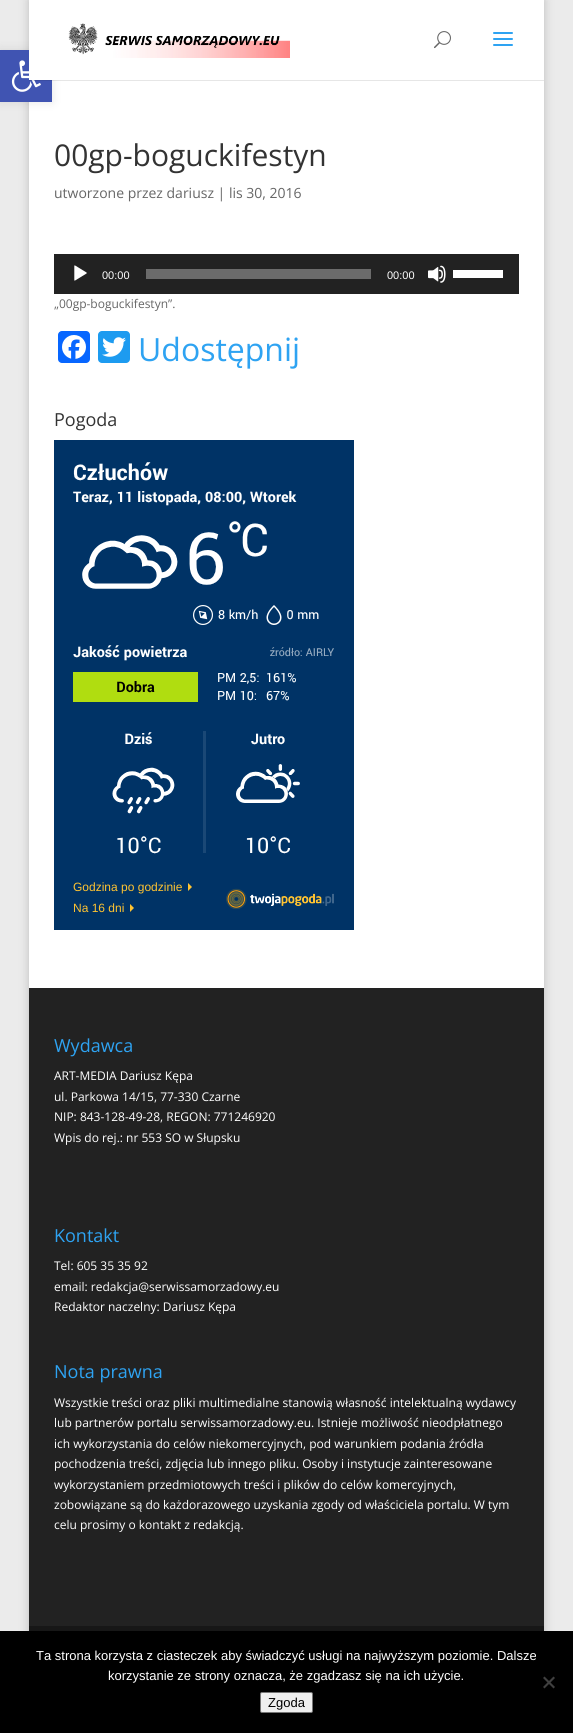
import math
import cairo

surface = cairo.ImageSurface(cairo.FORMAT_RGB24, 573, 1733)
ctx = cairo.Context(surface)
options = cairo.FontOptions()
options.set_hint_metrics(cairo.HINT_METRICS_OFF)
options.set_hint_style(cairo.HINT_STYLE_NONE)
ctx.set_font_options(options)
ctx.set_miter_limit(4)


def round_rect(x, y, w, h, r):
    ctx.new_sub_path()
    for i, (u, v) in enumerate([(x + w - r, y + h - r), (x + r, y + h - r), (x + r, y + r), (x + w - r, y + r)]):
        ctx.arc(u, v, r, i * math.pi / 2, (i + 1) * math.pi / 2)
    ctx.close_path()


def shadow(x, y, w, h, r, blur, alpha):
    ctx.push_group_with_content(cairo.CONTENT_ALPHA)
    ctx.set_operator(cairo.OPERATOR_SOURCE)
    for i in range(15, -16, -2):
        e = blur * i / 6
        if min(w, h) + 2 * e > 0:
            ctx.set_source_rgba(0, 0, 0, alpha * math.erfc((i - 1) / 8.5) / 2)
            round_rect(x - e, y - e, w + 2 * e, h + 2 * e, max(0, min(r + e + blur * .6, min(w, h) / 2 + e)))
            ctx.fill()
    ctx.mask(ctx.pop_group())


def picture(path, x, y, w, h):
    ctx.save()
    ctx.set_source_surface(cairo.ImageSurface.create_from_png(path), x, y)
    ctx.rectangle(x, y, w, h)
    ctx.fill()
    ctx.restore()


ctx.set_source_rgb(0.918, 0.918, 0.918)
ctx.paint()
ctx.set_source_rgb(0, 0, 0)
shadow(29, 0, 515, 1710, 0, 5, 0.2)
ctx.set_source_rgb(1, 1, 1)
ctx.rectangle(29, 80, 515, 908)
ctx.fill()
ctx.set_source_rgb(0, 0, 0)
shadow(0, 50, 52, 52, 0, 5, 0.1)
ctx.set_source_rgb(0.251, 0.329, 0.698)
ctx.rectangle(0, 50, 52, 52)
ctx.fill()
picture("img1.png", 11, 60, 30, 32)
ctx.set_source_rgba(0, 0, 0, 0.1)
ctx.rectangle(29, 80, 515, 1)
ctx.fill()
ctx.set_source_rgb(1, 1, 1)
ctx.rectangle(29, 0, 515, 80)
ctx.fill()
picture("img2.png", 68, 23, 222, 35)
picture("img3.png", 434, 31, 17, 18)
picture("img4.png", 493, 32, 20, 14)
ctx.select_font_face("Open Sans")
ctx.set_font_size(30)
ctx.set_source_rgb(0.2, 0.2, 0.2)
ctx.move_to(54, 166)
ctx.show_text("00gp-boguckifestyn")
ctx.set_font_size(14)
ctx.set_source_rgb(0.4, 0.4, 0.4)
ctx.move_to(54, 198)
ctx.show_text("utworzone przez dariusz | lis 30, 2016")
ctx.set_source_rgb(0.133, 0.133, 0.133)
ctx.rectangle(54, 254, 465, 40)
ctx.fill()
picture("img5.png", 74, 265, 13, 16)
ctx.select_font_face("Liberation Sans")
ctx.set_font_size(11)
ctx.set_source_rgb(1, 1, 1)
ctx.move_to(102, 279)
ctx.show_text("00:00")
ctx.set_source_rgb(0.42, 0.42, 0.42)
ctx.rectangle(146, 269, 225, 10)
ctx.fill()
ctx.set_source_rgb(1, 1, 1)
ctx.move_to(387, 279)
ctx.show_text("00:00")
picture("img6.png", 428, 265, 18, 18)
ctx.rectangle(453, 270, 50, 8)
ctx.fill()
ctx.select_font_face("Open Sans")
ctx.set_font_size(12)
ctx.set_source_rgb(0.4, 0.4, 0.4)
ctx.move_to(54, 308)
ctx.show_text("„00gp-boguckifestyn”.")
ctx.set_source_rgb(0.031, 0.4, 1)
round_rect(58, 331, 32, 32, 4)
ctx.fill()
picture("img7.png", 62, 335, 24, 24)
ctx.set_source_rgb(0.114, 0.608, 0.941)
round_rect(98, 331, 32, 32, 4)
ctx.fill()
picture("img8.png", 102, 337, 24, 20)
ctx.set_font_size(32)
ctx.set_source_rgb(0.18, 0.639, 0.949)
ctx.move_to(138, 361)
ctx.show_text("Udostępnij")
ctx.set_font_size(18)
ctx.set_source_rgb(0.2, 0.2, 0.2)
ctx.move_to(54, 426)
ctx.show_text("Pogoda")
ctx.set_source_rgb(0, 0.2, 0.4)
ctx.rectangle(54, 440, 300, 490)
ctx.fill()
picture("img9.png", 73, 462, 261, 392)
ctx.select_font_face("Liberation Sans")
ctx.set_font_size(12)
ctx.set_source_rgb(1, 0.765, 0.192)
ctx.move_to(73, 891)
ctx.show_text("Godzina po godzinie")
ctx.new_path()
ctx.move_to(188, 891)
ctx.line_to(188, 883)
ctx.line_to(192, 887)
ctx.close_path()
ctx.fill()
picture("img10.png", 226, 888, 108, 22)
ctx.move_to(73, 912)
ctx.show_text("Na 16 dni")
ctx.new_path()
ctx.move_to(130, 912)
ctx.line_to(130, 904)
ctx.line_to(134, 908)
ctx.close_path()
ctx.fill()
ctx.set_source_rgb(0.133, 0.133, 0.133)
ctx.rectangle(29, 988, 515, 638)
ctx.fill()
ctx.select_font_face("Open Sans")
ctx.set_font_size(18)
ctx.set_source_rgb(0.18, 0.639, 0.949)
ctx.move_to(54, 1052)
ctx.show_text("Wydawca")
ctx.set_font_size(12)
ctx.set_source_rgb(1, 1, 1)
ctx.move_to(54, 1080)
ctx.show_text("ART-MEDIA Dariusz Kępa")
ctx.move_to(54, 1101)
ctx.show_text("ul. Parkowa 14/15, 77-330 Czarne")
ctx.move_to(54, 1121)
ctx.show_text("NIP: 843-128-49-28, REGON: 771246920")
ctx.move_to(54, 1142)
ctx.show_text("Wpis do rej.: nr 553 SO w Słupsku")
ctx.set_font_size(18)
ctx.set_source_rgb(0.18, 0.639, 0.949)
ctx.move_to(54, 1242)
ctx.show_text("Kontakt")
ctx.set_font_size(12)
ctx.set_source_rgb(1, 1, 1)
ctx.move_to(54, 1270)
ctx.show_text("Tel: 605 35 35 92")
ctx.move_to(54, 1291)
ctx.show_text("email: redakcja@serwissamorzadowy.eu")
ctx.move_to(54, 1311)
ctx.show_text("Redaktor naczelny: Dariusz Kępa")
ctx.set_font_size(18)
ctx.set_source_rgb(0.18, 0.639, 0.949)
ctx.move_to(54, 1378)
ctx.show_text("Nota prawna")
ctx.set_font_size(12)
ctx.set_source_rgb(1, 1, 1)
ctx.move_to(54, 1407)
ctx.show_text("Wszystkie treści oraz pliki multimedialne stanowią własność intelektualną wydawcy")
ctx.move_to(54, 1427)
ctx.show_text("lub partnerów portalu serwissamorzadowy.eu. Istnieje możliwość nieodpłatnego")
ctx.move_to(54, 1448)
ctx.show_text("ich wykorzystania do celów niekomercyjnych, pod warunkiem podania źródła")
ctx.move_to(54, 1468)
ctx.show_text("pochodzenia treści, zdjęcia lub innego pliku. Osoby i instytucje zainteresowane")
ctx.move_to(54, 1489)
ctx.show_text("wykorzystaniem przedmiotowych treści i plików do celów komercyjnych,")
ctx.move_to(54, 1509)
ctx.show_text("zobowiązane są do każdorazowego uzyskania zgody od właściciela portalu. W tym")
ctx.move_to(54, 1529)
ctx.show_text("celu prosimy o kontakt z redakcją.")
ctx.set_source_rgb(0.09, 0.09, 0.09)
ctx.rectangle(29, 1626, 515, 5)
ctx.fill()
ctx.set_source_rgb(0, 0, 0)
ctx.rectangle(0, 1631, 573, 102)
ctx.fill()
ctx.select_font_face("Liberation Sans")
ctx.set_font_size(13)
ctx.set_source_rgb(1, 1, 1)
ctx.move_to(36, 1660)
ctx.show_text("Ta strona korzysta z ciasteczek aby świadczyć usługi na najwyższym poziomie. Dalsze")
ctx.move_to(108, 1680)
ctx.show_text("korzystanie ze strony oznacza, że zgadzasz się na ich użycie.")
ctx.set_source_rgb(0.251, 0.251, 0.251)
ctx.new_path()
ctx.move_to(553.5, 1676.5)
ctx.line_to(555, 1678)
ctx.line_to(544.5, 1688.5)
ctx.line_to(543, 1687)
ctx.close_path()
ctx.fill()
ctx.new_path()
ctx.move_to(543, 1678)
ctx.line_to(544.5, 1676.5)
ctx.line_to(555, 1687)
ctx.line_to(553.5, 1688.5)
ctx.close_path()
ctx.fill()
ctx.set_source_rgb(0.937, 0.937, 0.937)
round_rect(260.5, 1692.5, 52, 20, 1.5)
ctx.fill_preserve()
ctx.set_source_rgb(0.463, 0.463, 0.463)
ctx.set_line_width(1)
ctx.stroke()
ctx.set_source_rgb(0, 0, 0)
ctx.move_to(268, 1707)
ctx.show_text("Zgoda")
surface.write_to_png("page.png")
